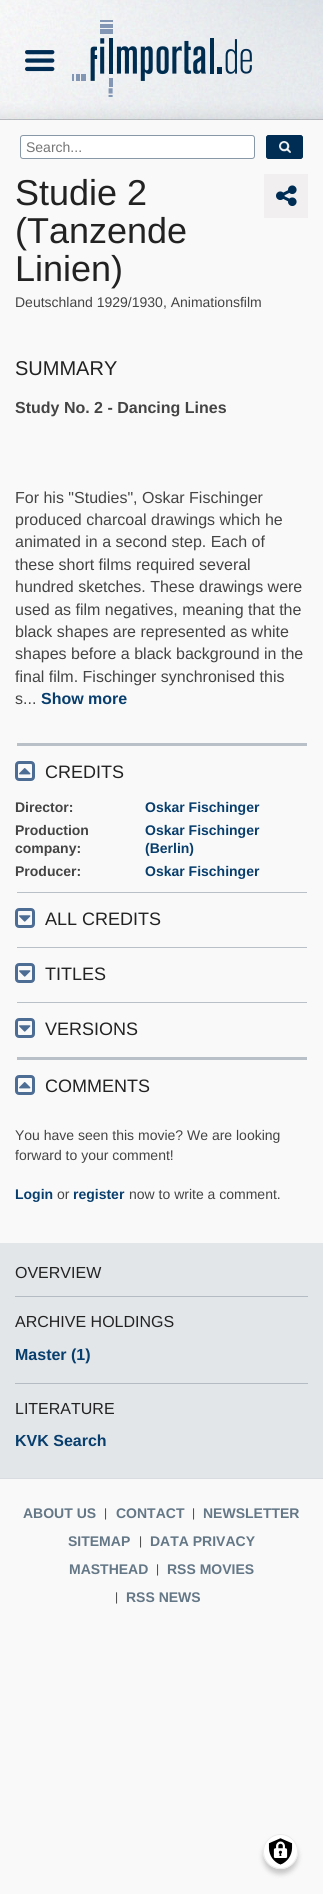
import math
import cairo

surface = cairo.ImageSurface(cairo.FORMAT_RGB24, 323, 1894)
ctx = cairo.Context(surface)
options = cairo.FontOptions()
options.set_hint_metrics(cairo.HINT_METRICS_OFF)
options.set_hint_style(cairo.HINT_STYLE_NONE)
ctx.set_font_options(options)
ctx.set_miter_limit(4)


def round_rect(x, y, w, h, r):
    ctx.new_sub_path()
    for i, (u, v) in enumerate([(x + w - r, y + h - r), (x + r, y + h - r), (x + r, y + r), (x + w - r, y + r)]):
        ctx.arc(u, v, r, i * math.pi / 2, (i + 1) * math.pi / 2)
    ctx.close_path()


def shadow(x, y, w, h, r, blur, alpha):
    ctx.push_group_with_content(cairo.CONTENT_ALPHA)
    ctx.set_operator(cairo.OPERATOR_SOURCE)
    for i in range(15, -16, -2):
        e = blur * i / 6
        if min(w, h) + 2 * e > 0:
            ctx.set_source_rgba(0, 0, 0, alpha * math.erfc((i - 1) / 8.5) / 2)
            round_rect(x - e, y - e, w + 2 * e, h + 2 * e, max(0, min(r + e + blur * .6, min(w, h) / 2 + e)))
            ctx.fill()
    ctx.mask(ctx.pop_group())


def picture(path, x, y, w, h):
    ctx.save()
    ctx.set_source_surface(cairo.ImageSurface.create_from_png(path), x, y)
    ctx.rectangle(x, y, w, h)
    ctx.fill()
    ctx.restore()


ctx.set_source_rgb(0.976, 0.976, 0.976)
ctx.paint()
picture("img1.png", 0, 0, 323, 120)
picture("img2.png", 25, 50, 30, 22)
picture("img3.png", 72, 20, 180, 77)
ctx.set_source_rgb(1, 1, 1)
round_rect(20.5, 135.5, 234, 23, 2.5)
ctx.fill_preserve()
ctx.set_source_rgb(0.537, 0.596, 0.651)
ctx.set_line_width(1)
ctx.stroke()
ctx.select_font_face("Liberation Sans")
ctx.set_font_size(14)
ctx.set_source_rgb(0.459, 0.459, 0.459)
ctx.move_to(26, 152)
ctx.show_text("Search...")
ctx.set_source_rgb(0, 0.176, 0.329)
round_rect(266, 135, 37, 24, 3)
ctx.fill()
picture("img4.png", 279, 141, 12, 12)
round_rect(266.5, 135.5, 36, 23, 2.5)
ctx.stroke()
ctx.set_font_size(36)
ctx.set_source_rgb(0.133, 0.133, 0.133)
ctx.move_to(15, 205)
ctx.show_text("Studie 2")
ctx.move_to(15, 243)
ctx.show_text("(Tanzende")
ctx.move_to(15, 281)
ctx.show_text("Linien)")
ctx.set_source_rgb(0.945, 0.937, 0.937)
ctx.rectangle(264, 174, 44, 44)
ctx.fill()
picture("img5.png", 276, 185, 21, 21)
ctx.set_font_size(14)
ctx.set_source_rgb(0.267, 0.267, 0.267)
ctx.move_to(15, 307)
ctx.show_text("Deutschland 1929/1930, Animationsfilm")
ctx.set_font_size(20)
ctx.set_source_rgb(0.133, 0.133, 0.133)
ctx.move_to(15, 375)
ctx.show_text("SUMMARY")
ctx.select_font_face("Liberation Sans", cairo.FONT_SLANT_NORMAL, cairo.FONT_WEIGHT_BOLD)
ctx.set_font_size(16)
ctx.set_source_rgb(0.267, 0.267, 0.267)
ctx.move_to(15, 413)
ctx.show_text("Study No. 2 - Dancing Lines")
ctx.select_font_face("Liberation Sans")
ctx.move_to(15, 503)
ctx.show_text("For his \"Studies\", Oskar Fischinger")
ctx.move_to(15, 525)
ctx.show_text("produced charcoal drawings which he")
ctx.move_to(15, 547)
ctx.show_text("animated in a second step. Each of")
ctx.move_to(15, 570)
ctx.show_text("these short films required several")
ctx.move_to(15, 592)
ctx.show_text("hundred sketches. These drawings were")
ctx.move_to(15, 615)
ctx.show_text("used as film negatives, meaning that the")
ctx.move_to(15, 637)
ctx.show_text("black shapes are represented as white")
ctx.move_to(15, 659)
ctx.show_text("shapes before a black background in the")
ctx.move_to(15, 682)
ctx.show_text("final film. Fischinger synchronised this")
ctx.move_to(15, 704)
ctx.show_text("s...")
ctx.select_font_face("Liberation Sans", cairo.FONT_SLANT_NORMAL, cairo.FONT_WEIGHT_BOLD)
ctx.set_source_rgb(0.035, 0.243, 0.427)
ctx.move_to(41, 704)
ctx.show_text("Show more")
ctx.set_source_rgb(0.725, 0.753, 0.78)
ctx.rectangle(17, 743, 290, 3)
ctx.fill()
round_rect(16.5, 762.5, 17, 17, 2.5)
ctx.set_source_rgb(0.306, 0.427, 0.584)
ctx.set_line_width(3)
ctx.stroke()
picture("img6.png", 19, 768, 12, 7)
ctx.select_font_face("Liberation Sans")
ctx.set_font_size(18)
ctx.set_source_rgb(0.133, 0.133, 0.133)
ctx.move_to(45, 778)
ctx.show_text("CREDITS")
ctx.select_font_face("Liberation Sans", cairo.FONT_SLANT_NORMAL, cairo.FONT_WEIGHT_BOLD)
ctx.set_font_size(14)
ctx.set_source_rgb(0.267, 0.267, 0.267)
ctx.move_to(15, 812)
ctx.show_text("Director:")
ctx.set_source_rgb(0.035, 0.243, 0.427)
ctx.move_to(145, 812)
ctx.show_text("Oskar Fischinger")
ctx.set_source_rgb(0.267, 0.267, 0.267)
ctx.move_to(15, 835)
ctx.show_text("Production")
ctx.move_to(15, 853)
ctx.show_text("company:")
ctx.set_source_rgb(0.035, 0.243, 0.427)
ctx.move_to(145, 835)
ctx.show_text("Oskar Fischinger")
ctx.move_to(145, 853)
ctx.show_text("(Berlin)")
ctx.set_source_rgb(0.267, 0.267, 0.267)
ctx.move_to(15, 876)
ctx.show_text("Producer:")
ctx.set_source_rgb(0.035, 0.243, 0.427)
ctx.move_to(145, 876)
ctx.show_text("Oskar Fischinger")
ctx.set_source_rgb(0.725, 0.753, 0.78)
ctx.rectangle(17, 892, 290, 1)
ctx.fill()
round_rect(16.5, 909.5, 17, 17, 2.5)
ctx.set_source_rgb(0.306, 0.427, 0.584)
ctx.stroke()
picture("img7.png", 19, 915, 12, 7)
ctx.select_font_face("Liberation Sans")
ctx.set_font_size(18)
ctx.set_source_rgb(0.133, 0.133, 0.133)
ctx.move_to(45, 925)
ctx.show_text("ALL CREDITS")
ctx.set_source_rgb(0.725, 0.753, 0.78)
ctx.rectangle(17, 947, 290, 1)
ctx.fill()
round_rect(16.5, 964.5, 17, 17, 2.5)
ctx.set_source_rgb(0.306, 0.427, 0.584)
ctx.stroke()
picture("img7.png", 19, 970, 12, 7)
ctx.set_source_rgb(0.133, 0.133, 0.133)
ctx.move_to(45, 980)
ctx.show_text("TITLES")
ctx.set_source_rgb(0.725, 0.753, 0.78)
ctx.rectangle(17, 1002, 290, 1)
ctx.fill()
round_rect(16.5, 1019.5, 17, 17, 2.5)
ctx.set_source_rgb(0.306, 0.427, 0.584)
ctx.stroke()
picture("img7.png", 19, 1025, 12, 7)
ctx.set_source_rgb(0.133, 0.133, 0.133)
ctx.move_to(45, 1035)
ctx.show_text("VERSIONS")
ctx.set_source_rgb(0.725, 0.753, 0.78)
ctx.rectangle(17, 1057, 290, 3)
ctx.fill()
round_rect(16.5, 1076.5, 17, 17, 2.5)
ctx.set_source_rgb(0.306, 0.427, 0.584)
ctx.stroke()
picture("img6.png", 19, 1082, 12, 7)
ctx.set_source_rgb(0.133, 0.133, 0.133)
ctx.move_to(45, 1092)
ctx.show_text("COMMENTS")
ctx.set_font_size(14)
ctx.set_source_rgb(0.267, 0.267, 0.267)
ctx.move_to(15, 1140)
ctx.show_text("You have seen this movie? We are looking")
ctx.move_to(15, 1160)
ctx.show_text("forward to your comment!")
ctx.select_font_face("Liberation Sans", cairo.FONT_SLANT_NORMAL, cairo.FONT_WEIGHT_BOLD)
ctx.set_source_rgb(0.035, 0.243, 0.427)
ctx.move_to(15, 1199)
ctx.show_text("Login")
ctx.select_font_face("Liberation Sans")
ctx.set_source_rgb(0.267, 0.267, 0.267)
ctx.move_to(57, 1199)
ctx.show_text("or")
ctx.select_font_face("Liberation Sans", cairo.FONT_SLANT_NORMAL, cairo.FONT_WEIGHT_BOLD)
ctx.set_source_rgb(0.035, 0.243, 0.427)
ctx.move_to(73, 1199)
ctx.show_text("register")
ctx.select_font_face("Liberation Sans")
ctx.set_source_rgb(0.267, 0.267, 0.267)
ctx.move_to(129, 1199)
ctx.show_text("now to write a comment.")
ctx.set_source_rgb(0.886, 0.902, 0.914)
ctx.rectangle(0, 1243, 323, 235)
ctx.fill()
ctx.set_source_rgb(0.71, 0.733, 0.761)
ctx.rectangle(15, 1296, 293, 1)
ctx.fill()
ctx.set_font_size(16)
ctx.set_source_rgb(0.133, 0.133, 0.133)
ctx.move_to(15, 1278)
ctx.show_text("OVERVIEW")
ctx.set_source_rgb(0.71, 0.733, 0.761)
ctx.rectangle(15, 1383, 293, 1)
ctx.fill()
ctx.set_source_rgb(0.133, 0.133, 0.133)
ctx.move_to(15, 1327)
ctx.show_text("ARCHIVE HOLDINGS")
ctx.select_font_face("Liberation Sans", cairo.FONT_SLANT_NORMAL, cairo.FONT_WEIGHT_BOLD)
ctx.set_source_rgb(0.035, 0.243, 0.427)
ctx.move_to(15, 1360)
ctx.show_text("Master (1)")
ctx.select_font_face("Liberation Sans")
ctx.set_source_rgb(0.133, 0.133, 0.133)
ctx.move_to(15, 1414)
ctx.show_text("LITERATURE")
ctx.select_font_face("Liberation Sans", cairo.FONT_SLANT_NORMAL, cairo.FONT_WEIGHT_BOLD)
ctx.set_source_rgb(0.035, 0.243, 0.427)
ctx.move_to(15, 1446)
ctx.show_text("KVK Search")
ctx.set_source_rgb(0.851, 0.863, 0.878)
ctx.rectangle(0, 1478, 323, 1)
ctx.fill()
ctx.set_font_size(14)
ctx.set_source_rgb(0.392, 0.467, 0.525)
ctx.move_to(23, 1518)
ctx.show_text("ABOUT US")
ctx.select_font_face("Liberation Sans")
ctx.set_font_size(12)
ctx.set_source_rgb(0.267, 0.267, 0.267)
ctx.move_to(104, 1517)
ctx.show_text("|")
ctx.select_font_face("Liberation Sans", cairo.FONT_SLANT_NORMAL, cairo.FONT_WEIGHT_BOLD)
ctx.set_font_size(14)
ctx.set_source_rgb(0.392, 0.467, 0.525)
ctx.move_to(116, 1518)
ctx.show_text("CONTACT")
ctx.select_font_face("Liberation Sans")
ctx.set_font_size(12)
ctx.set_source_rgb(0.267, 0.267, 0.267)
ctx.move_to(192, 1517)
ctx.show_text("|")
ctx.select_font_face("Liberation Sans", cairo.FONT_SLANT_NORMAL, cairo.FONT_WEIGHT_BOLD)
ctx.set_font_size(14)
ctx.set_source_rgb(0.392, 0.467, 0.525)
ctx.move_to(203, 1518)
ctx.show_text("NEWSLETTER")
ctx.move_to(68, 1546)
ctx.show_text("SITEMAP")
ctx.select_font_face("Liberation Sans")
ctx.set_font_size(12)
ctx.set_source_rgb(0.267, 0.267, 0.267)
ctx.move_to(139, 1545)
ctx.show_text("|")
ctx.select_font_face("Liberation Sans", cairo.FONT_SLANT_NORMAL, cairo.FONT_WEIGHT_BOLD)
ctx.set_font_size(14)
ctx.set_source_rgb(0.392, 0.467, 0.525)
ctx.move_to(150, 1546)
ctx.show_text("DATA PRIVACY")
ctx.move_to(69, 1574)
ctx.show_text("MASTHEAD")
ctx.select_font_face("Liberation Sans")
ctx.set_font_size(12)
ctx.set_source_rgb(0.267, 0.267, 0.267)
ctx.move_to(156, 1573)
ctx.show_text("|")
ctx.select_font_face("Liberation Sans", cairo.FONT_SLANT_NORMAL, cairo.FONT_WEIGHT_BOLD)
ctx.set_font_size(14)
ctx.set_source_rgb(0.392, 0.467, 0.525)
ctx.move_to(167, 1574)
ctx.show_text("RSS MOVIES")
ctx.select_font_face("Liberation Sans")
ctx.set_font_size(12)
ctx.set_source_rgb(0.267, 0.267, 0.267)
ctx.move_to(115, 1601)
ctx.show_text("|")
ctx.select_font_face("Liberation Sans", cairo.FONT_SLANT_NORMAL, cairo.FONT_WEIGHT_BOLD)
ctx.set_font_size(14)
ctx.set_source_rgb(0.392, 0.467, 0.525)
ctx.move_to(126, 1602)
ctx.show_text("RSS NEWS")
ctx.set_source_rgb(0, 0, 0)
shadow(263, 1839, 35, 35, 17.5, 2.5, 0.2)
ctx.set_source_rgb(1, 1, 1)
ctx.arc(280.5, 1851.5, 17.5, 0, 2 * math.pi)
ctx.fill()
picture("img8.png", 268, 1838, 25, 27)
ctx.arc(280.5, 1851.5, 17, 0, 2 * math.pi)
ctx.set_source_rgb(0.918, 0.918, 0.918)
ctx.set_line_width(1)
ctx.stroke()
surface.write_to_png("page.png")
